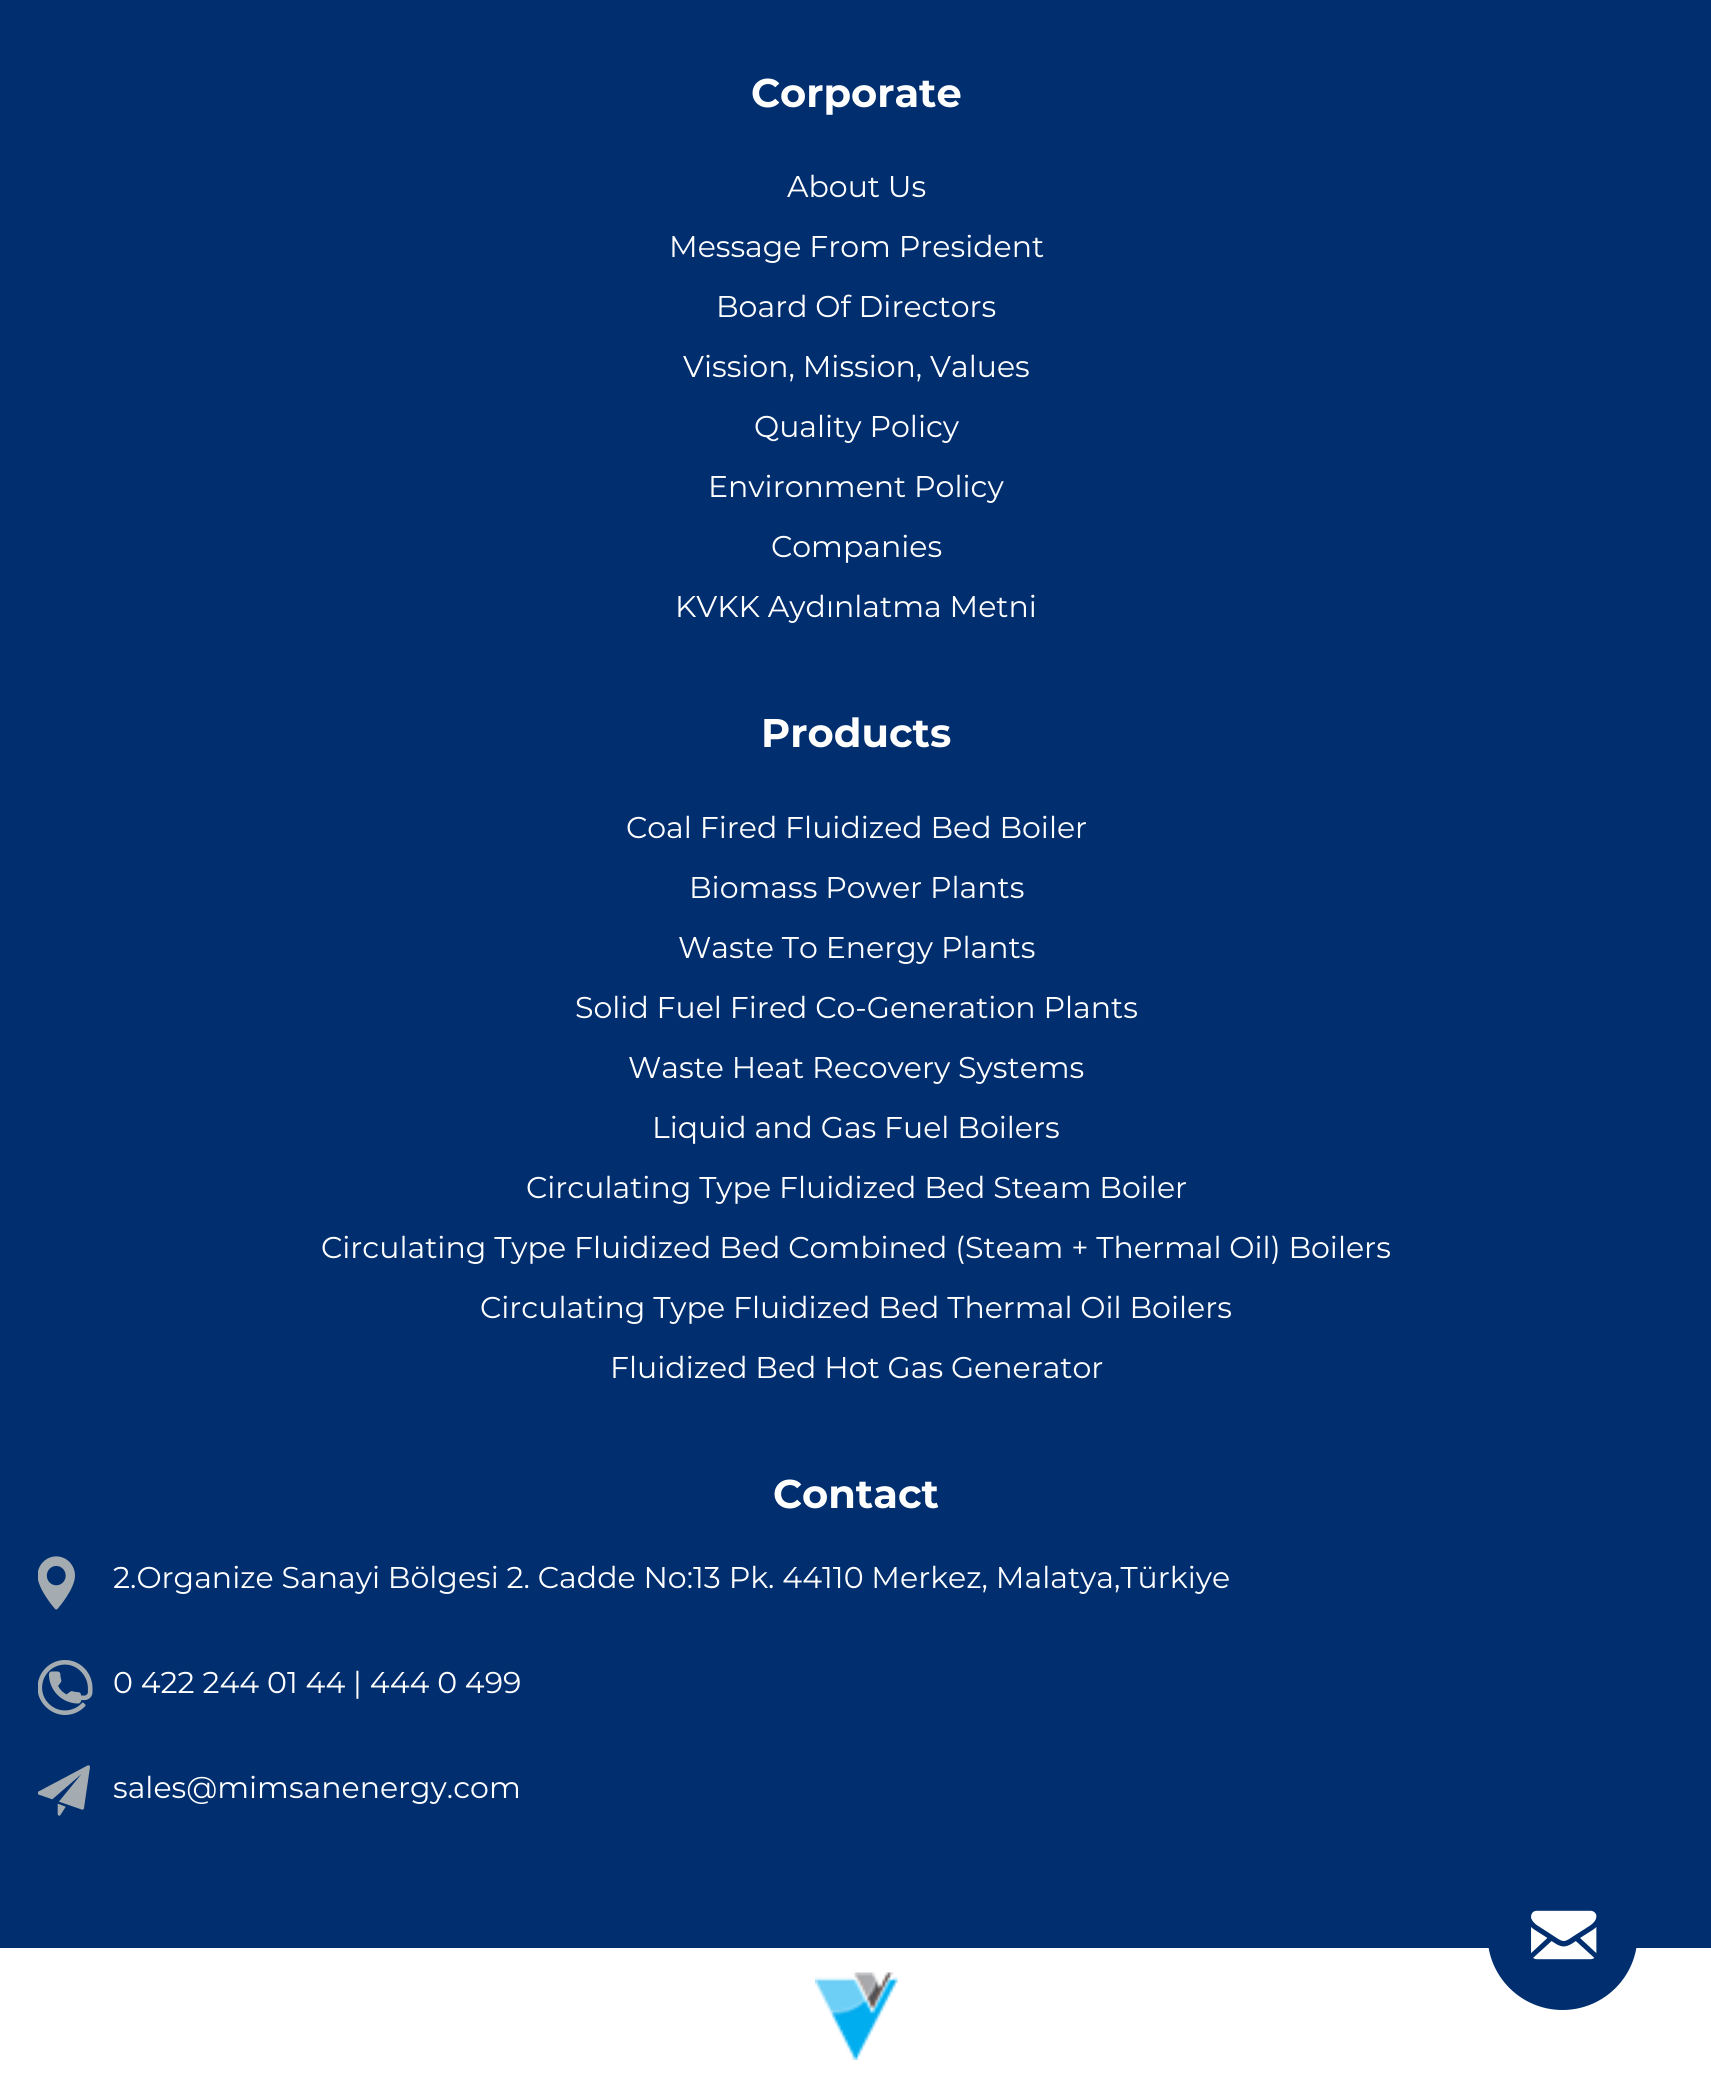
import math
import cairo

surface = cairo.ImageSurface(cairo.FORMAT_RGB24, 1711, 2085)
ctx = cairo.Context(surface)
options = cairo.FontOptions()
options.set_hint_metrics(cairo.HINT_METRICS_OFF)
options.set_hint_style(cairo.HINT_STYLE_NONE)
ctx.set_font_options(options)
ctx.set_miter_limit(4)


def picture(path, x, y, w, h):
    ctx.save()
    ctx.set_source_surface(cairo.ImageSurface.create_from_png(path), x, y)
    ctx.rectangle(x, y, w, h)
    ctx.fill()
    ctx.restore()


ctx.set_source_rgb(1, 1, 1)
ctx.paint()
ctx.set_source_rgb(0, 0.18, 0.431)
ctx.rectangle(0, 0, 1711, 1948)
ctx.fill()
ctx.select_font_face("Montserrat", cairo.FONT_SLANT_NORMAL, cairo.FONT_WEIGHT_BOLD)
ctx.set_font_size(40)
ctx.set_source_rgb(1, 1, 1)
ctx.move_to(751, 107)
ctx.show_text("Corporate")
ctx.select_font_face("Montserrat")
ctx.set_font_size(30)
ctx.move_to(787, 197)
ctx.show_text("About Us")
ctx.move_to(669, 257)
ctx.show_text("Message From President")
ctx.move_to(716, 317)
ctx.show_text("Board Of Directors")
ctx.move_to(683, 377)
ctx.show_text("Vission, Mission, Values")
ctx.move_to(754, 437)
ctx.show_text("Quality Policy")
ctx.move_to(708, 497)
ctx.show_text("Environment Policy")
ctx.move_to(771, 557)
ctx.show_text("Companies")
ctx.move_to(675, 617)
ctx.show_text("KVKK Aydınlatma Metni")
ctx.select_font_face("Montserrat", cairo.FONT_SLANT_NORMAL, cairo.FONT_WEIGHT_BOLD)
ctx.set_font_size(40)
ctx.move_to(761, 747)
ctx.show_text("Products")
ctx.select_font_face("Montserrat")
ctx.set_font_size(30)
ctx.move_to(626, 838)
ctx.show_text("Coal Fired Fluidized Bed Boiler")
ctx.move_to(689, 898)
ctx.show_text("Biomass Power Plants")
ctx.move_to(678, 958)
ctx.show_text("Waste To Energy Plants")
ctx.move_to(575, 1018)
ctx.show_text("Solid Fuel Fired Co-Generation Plants")
ctx.move_to(628, 1078)
ctx.show_text("Waste Heat Recovery Systems")
ctx.move_to(652, 1138)
ctx.show_text("Liquid and Gas Fuel Boilers")
ctx.move_to(526, 1198)
ctx.show_text("Circulating Type Fluidized Bed Steam Boiler")
ctx.move_to(321, 1258)
ctx.show_text("Circulating Type Fluidized Bed Combined (Steam + Thermal Oil) Boilers")
ctx.move_to(480, 1318)
ctx.show_text("Circulating Type Fluidized Bed Thermal Oil Boilers")
ctx.move_to(610, 1378)
ctx.show_text("Fluidized Bed Hot Gas Generator")
ctx.select_font_face("Montserrat", cairo.FONT_SLANT_NORMAL, cairo.FONT_WEIGHT_BOLD)
ctx.set_font_size(40)
ctx.move_to(773, 1508)
ctx.show_text("Contact")
picture("img1.png", 38, 1556, 37, 54)
ctx.select_font_face("Montserrat")
ctx.set_font_size(30)
ctx.move_to(113, 1588)
ctx.show_text("2.Organize Sanayi Bölgesi 2. Cadde No:13 Pk. 44110 Merkez, Malatya,Türkiye")
picture("img2.png", 38, 1660, 55, 55)
ctx.move_to(113, 1693)
ctx.show_text("0 422 244 01 44 | 444 0 499")
picture("img3.png", 38, 1765, 52, 51)
ctx.move_to(113, 1798)
ctx.show_text("sales@mimsanenergy.com")
picture("img4.png", 815, 1972, 83, 88)
picture("img5.png", 1488, 1910, 149, 100)
surface.write_to_png("page.png")
